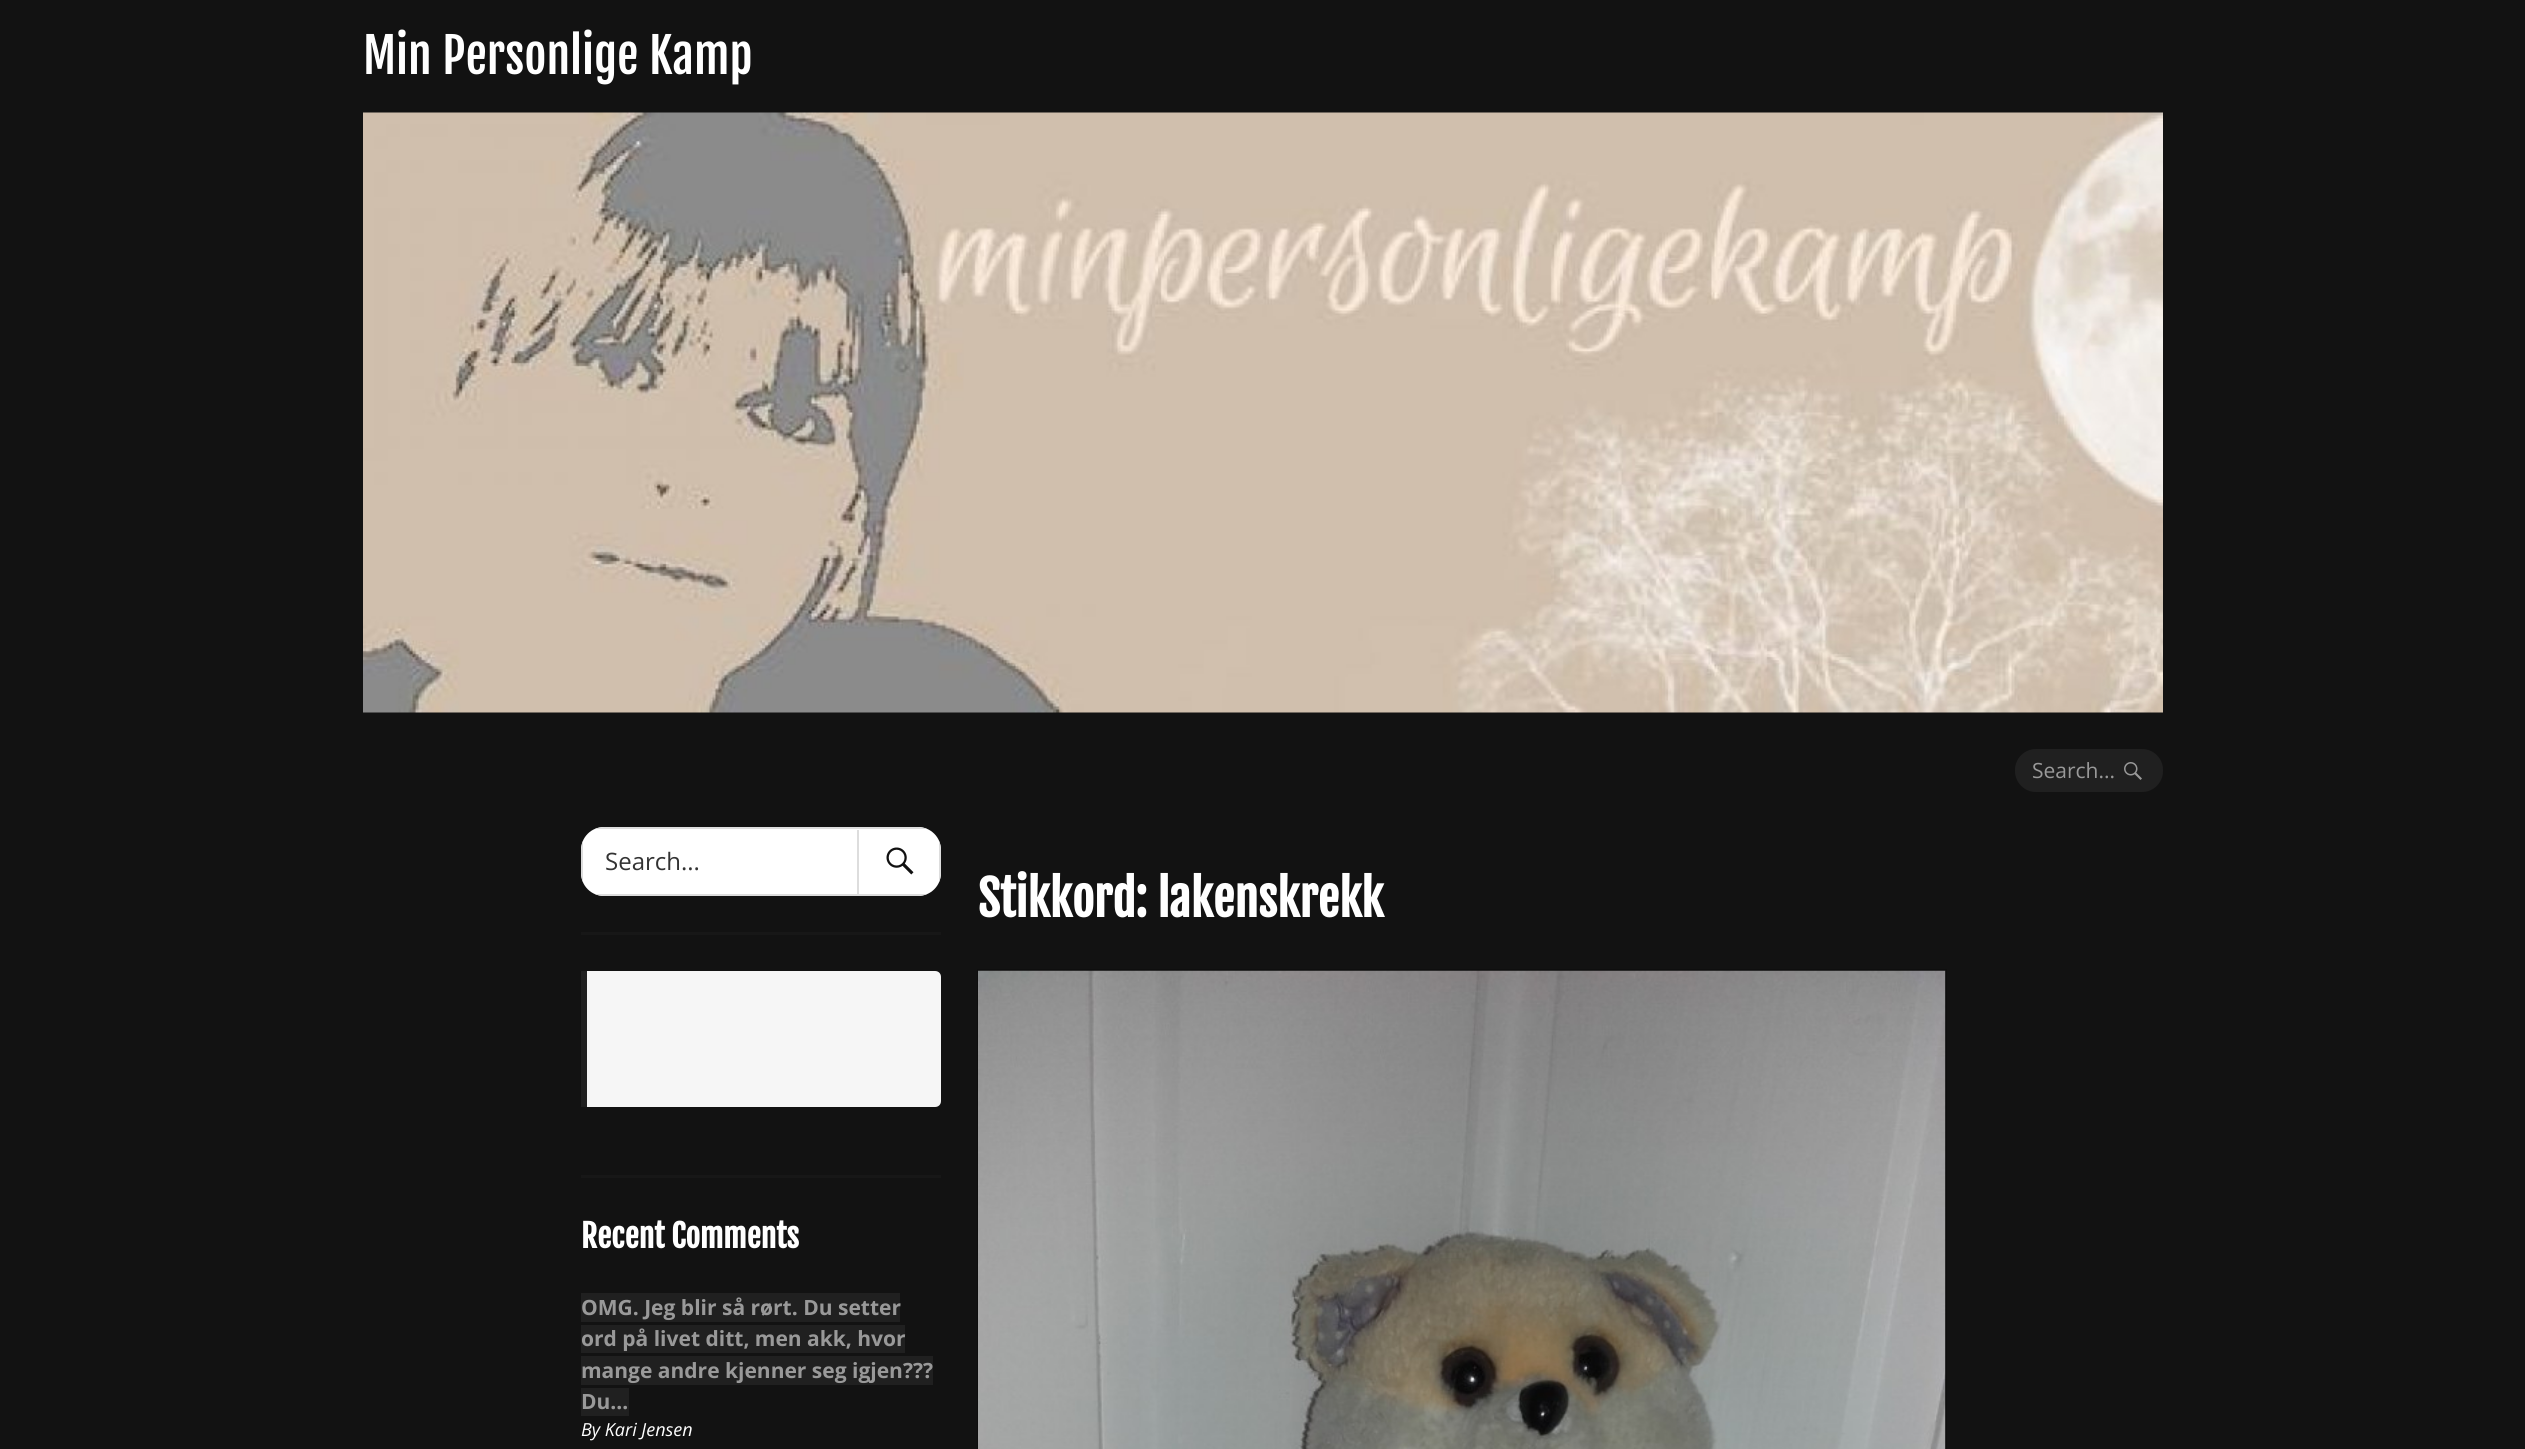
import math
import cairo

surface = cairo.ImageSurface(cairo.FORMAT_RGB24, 2525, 1449)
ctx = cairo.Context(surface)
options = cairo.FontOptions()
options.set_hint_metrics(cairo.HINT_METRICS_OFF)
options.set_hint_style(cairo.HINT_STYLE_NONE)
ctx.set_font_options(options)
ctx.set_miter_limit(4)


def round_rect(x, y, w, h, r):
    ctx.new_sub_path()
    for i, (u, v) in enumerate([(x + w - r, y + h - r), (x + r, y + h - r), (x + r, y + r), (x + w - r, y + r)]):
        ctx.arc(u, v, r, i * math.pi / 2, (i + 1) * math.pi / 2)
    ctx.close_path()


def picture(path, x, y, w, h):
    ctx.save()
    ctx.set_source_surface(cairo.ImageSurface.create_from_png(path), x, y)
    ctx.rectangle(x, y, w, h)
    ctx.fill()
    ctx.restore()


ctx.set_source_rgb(0.071, 0.071, 0.071)
ctx.paint()
ctx.select_font_face("Fjalla One")
ctx.set_font_size(48)
ctx.set_source_rgb(1, 1, 1)
ctx.move_to(363, 74)
ctx.show_text("Min Personlige Kamp")
picture("img1.png", 363, 112, 1800, 601)
ctx.set_source_rgb(0.125, 0.125, 0.125)
round_rect(2015, 749, 148, 43, 21)
ctx.fill()
ctx.select_font_face("Open Sans")
ctx.set_font_size(21)
ctx.set_source_rgb(0.6, 0.6, 0.6)
ctx.move_to(2032, 778)
ctx.show_text("Search...")
picture("img2.png", 2124, 762, 18, 18)
ctx.set_source_rgb(0.09, 0.09, 0.09)
ctx.rectangle(581, 932, 360, 3)
ctx.fill()
ctx.set_source_rgb(1, 1, 1)
round_rect(581, 827, 360, 69, 23)
ctx.fill()
ctx.set_source_rgb(0.867, 0.867, 0.867)
ctx.set_fill_rule(cairo.FILL_RULE_EVEN_ODD)
ctx.new_path()
ctx.move_to(581, 850)
ctx.line_to(581, 873)
ctx.curve_to(581, 876, 582, 880, 583, 882)
ctx.line_to(583, 841)
ctx.curve_to(582, 843, 581, 847, 581, 850)
ctx.close_path()
ctx.move_to(604, 827)
ctx.curve_to(601, 827, 597, 828, 595, 829)
ctx.line_to(927, 829)
ctx.curve_to(925, 828, 921, 827, 918, 827)
ctx.close_path()
ctx.move_to(941, 850)
ctx.curve_to(941, 847, 940, 843, 939, 841)
ctx.line_to(939, 882)
ctx.curve_to(940, 880, 941, 876, 941, 873)
ctx.close_path()
ctx.move_to(918, 896)
ctx.curve_to(921, 896, 925, 895, 927, 894)
ctx.line_to(595, 894)
ctx.curve_to(597, 895, 601, 896, 604, 896)
ctx.close_path()
ctx.fill()
ctx.set_font_size(24)
ctx.set_source_rgb(0.2, 0.2, 0.2)
ctx.move_to(605, 870)
ctx.show_text("Search...")
ctx.set_source_rgb(0.867, 0.867, 0.867)
ctx.rectangle(857, 830, 2, 64)
ctx.fill()
picture("img3.png", 886, 847, 28, 28)
ctx.set_source_rgb(0.09, 0.09, 0.09)
ctx.rectangle(581, 1175, 360, 3)
ctx.fill()
ctx.set_source_rgb(0.961, 0.961, 0.961)
ctx.new_path()
ctx.move_to(581, 971)
ctx.line_to(935, 971)
ctx.curve_to(938.5, 971, 941, 973.5, 941, 977)
ctx.line_to(941, 1101)
ctx.curve_to(941, 1104.5, 938.5, 1107, 935, 1107)
ctx.line_to(581, 1107)
ctx.close_path()
ctx.fill()
ctx.set_source_rgb(0.125, 0.125, 0.125)
ctx.rectangle(581, 971, 6, 136)
ctx.fill()
ctx.select_font_face("Fjalla One", cairo.FONT_SLANT_NORMAL, cairo.FONT_WEIGHT_BOLD)
ctx.set_font_size(31.5)
ctx.set_source_rgb(1, 1, 1)
ctx.move_to(581, 1248)
ctx.show_text("Recent Comments")
ctx.set_source_rgb(0.125, 0.125, 0.125)
ctx.rectangle(581, 1293, 319, 29)
ctx.fill()
ctx.select_font_face("Open Sans", cairo.FONT_SLANT_NORMAL, cairo.FONT_WEIGHT_BOLD)
ctx.set_font_size(21)
ctx.set_source_rgb(0.6, 0.6, 0.6)
ctx.move_to(581, 1315)
ctx.show_text("OMG. Jeg blir så rørt. Du setter")
ctx.set_source_rgb(0.125, 0.125, 0.125)
ctx.rectangle(581, 1325, 324, 28)
ctx.fill()
ctx.set_source_rgb(0.6, 0.6, 0.6)
ctx.move_to(581, 1346)
ctx.show_text("ord på livet ditt, men akk, hvor")
ctx.set_source_rgb(0.125, 0.125, 0.125)
ctx.rectangle(581, 1356, 352, 29)
ctx.fill()
ctx.set_source_rgb(0.6, 0.6, 0.6)
ctx.move_to(581, 1378)
ctx.show_text("mange andre kjenner seg igjen???")
ctx.set_source_rgb(0.125, 0.125, 0.125)
ctx.rectangle(581, 1388, 48, 28)
ctx.fill()
ctx.set_source_rgb(0.6, 0.6, 0.6)
ctx.move_to(581, 1409)
ctx.show_text("Du…")
ctx.select_font_face("Open Sans", cairo.FONT_SLANT_ITALIC)
ctx.set_font_size(18)
ctx.set_source_rgb(1, 1, 1)
ctx.move_to(581, 1436)
ctx.show_text("By Kari Jensen")
ctx.select_font_face("Fjalla One", cairo.FONT_SLANT_NORMAL, cairo.FONT_WEIGHT_BOLD)
ctx.set_font_size(48)
ctx.move_to(978, 917)
ctx.show_text("Stikkord: lakenskrekk")
ctx.rectangle(978, 970, 968, 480)
ctx.set_source_rgb(0.055, 0.055, 0.055)
ctx.stroke()
ctx.set_source_rgb(0, 0, 0)
ctx.rectangle(1945, 971, 1, 478)
ctx.fill()
picture("img4.png", 978, 970, 968, 479)
surface.write_to_png("page.png")
